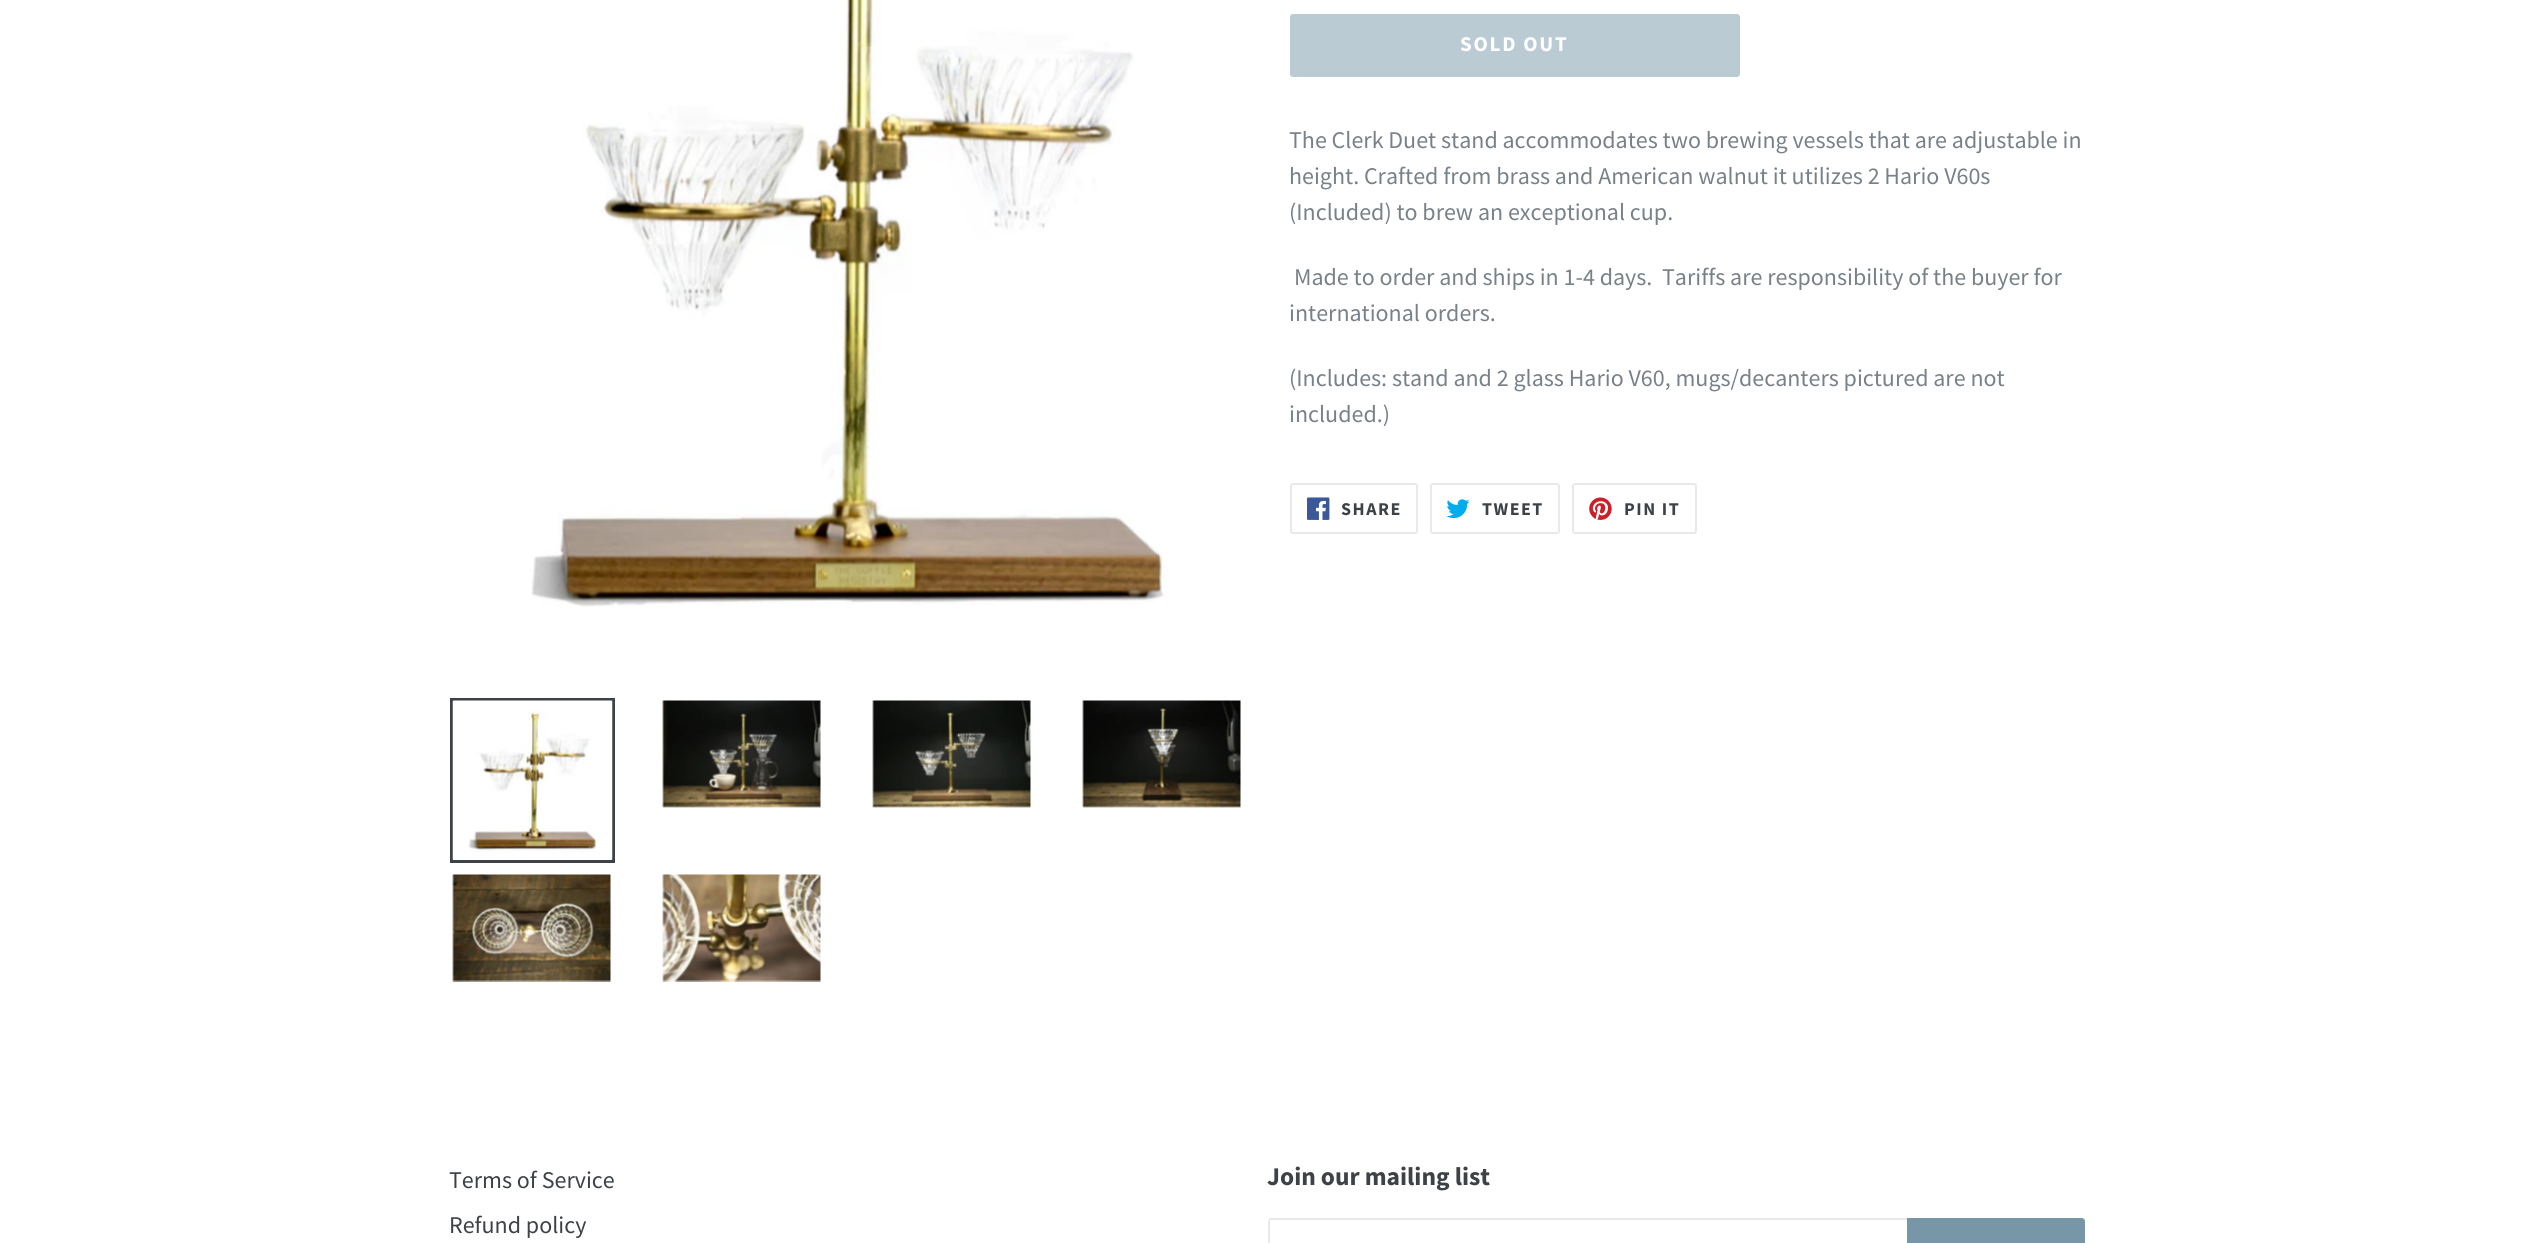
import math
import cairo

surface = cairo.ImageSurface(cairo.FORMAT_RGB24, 2533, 1243)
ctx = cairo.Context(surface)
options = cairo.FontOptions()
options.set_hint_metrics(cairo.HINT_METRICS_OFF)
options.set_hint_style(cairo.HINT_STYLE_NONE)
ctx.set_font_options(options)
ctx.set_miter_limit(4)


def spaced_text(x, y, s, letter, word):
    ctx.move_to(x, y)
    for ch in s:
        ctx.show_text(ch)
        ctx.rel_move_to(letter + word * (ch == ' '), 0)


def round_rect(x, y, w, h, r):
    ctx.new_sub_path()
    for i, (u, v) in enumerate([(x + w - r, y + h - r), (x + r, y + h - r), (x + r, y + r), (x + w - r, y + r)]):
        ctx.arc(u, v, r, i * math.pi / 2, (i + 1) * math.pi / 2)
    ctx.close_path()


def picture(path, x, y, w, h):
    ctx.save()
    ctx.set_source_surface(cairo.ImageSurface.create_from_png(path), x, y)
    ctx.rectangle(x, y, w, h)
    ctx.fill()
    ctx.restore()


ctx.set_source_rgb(1, 1, 1)
ctx.paint()
picture("img1.png", 531, 0, 639, 607)
ctx.rectangle(451.5, 699.5, 162, 162)
ctx.set_source_rgb(0.239, 0.259, 0.275)
ctx.set_line_width(3)
ctx.stroke()
picture("img2.png", 452, 700, 161, 160)
picture("img3.png", 662, 700, 159, 108)
picture("img4.png", 872, 700, 159, 108)
picture("img5.png", 1082, 700, 159, 108)
picture("img6.png", 452, 874, 159, 108)
picture("img7.png", 662, 874, 159, 108)
ctx.set_source_rgb(0.733, 0.796, 0.831)
round_rect(1290, 14, 450, 63, 3)
ctx.fill()
ctx.select_font_face("Source Sans Pro", cairo.FONT_SLANT_NORMAL, cairo.FONT_WEIGHT_BOLD)
ctx.set_font_size(21)
ctx.set_source_rgb(1, 1, 1)
spaced_text(1460, 51, "SOLD OUT", 1.75, 0)
ctx.select_font_face("Source Sans Pro")
ctx.set_font_size(24)
ctx.set_source_rgb(0.471, 0.506, 0.533)
ctx.move_to(1289, 148)
ctx.show_text("The Clerk Duet stand accommodates two brewing vessels that are adjustable in")
ctx.move_to(1289, 184)
ctx.show_text("height. Crafted from brass and American walnut it utilizes 2 Hario V60s")
ctx.move_to(1289, 220)
ctx.show_text("(Included) to brew an exceptional cup.")
ctx.move_to(1294, 285)
ctx.show_text("Made to order and ships in 1-4 days.")
ctx.move_to(1662, 285)
ctx.show_text("Tariffs are responsibility of the buyer for")
ctx.move_to(1289, 321)
ctx.show_text("international orders.")
ctx.move_to(1289, 386)
ctx.show_text("(Includes: stand and 2 glass Hario V60, mugs/decanters pictured are not")
ctx.move_to(1289, 422)
ctx.show_text("included.)")
round_rect(1291, 484, 126, 49, 2)
ctx.set_source_rgb(0.91, 0.914, 0.922)
ctx.set_line_width(2)
ctx.stroke()
picture("img8.png", 1307, 497, 23, 23)
ctx.select_font_face("Source Sans Pro", cairo.FONT_SLANT_NORMAL, cairo.FONT_WEIGHT_BOLD)
ctx.set_font_size(18)
ctx.set_source_rgb(0.239, 0.259, 0.275)
spaced_text(1341, 515, "SHARE", 1.5, 0)
round_rect(1431, 484, 128, 49, 2)
ctx.set_source_rgb(0.91, 0.914, 0.922)
ctx.stroke()
picture("img9.png", 1446, 499, 24, 20)
ctx.set_source_rgb(0.239, 0.259, 0.275)
spaced_text(1482, 515, "TWEET", 1.5, 0)
round_rect(1573, 484, 123, 49, 2)
ctx.set_source_rgb(0.91, 0.914, 0.922)
ctx.stroke()
picture("img10.png", 1589, 497, 23, 23)
ctx.set_source_rgb(0.239, 0.259, 0.275)
spaced_text(1624, 515, "PIN IT", 1.5, 0)
ctx.select_font_face("Source Sans Pro")
ctx.set_font_size(24)
ctx.move_to(449, 1188)
ctx.show_text("Terms of Service")
ctx.move_to(449, 1233)
ctx.show_text("Refund policy")
ctx.select_font_face("Source Sans Pro", cairo.FONT_SLANT_NORMAL, cairo.FONT_WEIGHT_BOLD)
ctx.set_font_size(25.5)
ctx.move_to(1267, 1185)
ctx.show_text("Join our mailing list")
ctx.set_source_rgb(0.91, 0.914, 0.922)
ctx.rectangle(1269, 1218, 638, 2)
ctx.fill()
ctx.rectangle(1268, 1220, 2, 23)
ctx.fill()
ctx.set_source_rgb(0.467, 0.588, 0.659)
ctx.new_path()
ctx.move_to(1907, 1218)
ctx.line_to(2082, 1218)
ctx.curve_to(2083.5, 1218, 2085, 1219.5, 2085, 1221)
ctx.line_to(2085, 1243)
ctx.curve_to(2085, 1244.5, 2083.5, 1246, 2082, 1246)
ctx.line_to(1907, 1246)
ctx.close_path()
ctx.fill()
surface.write_to_png("page.png")
